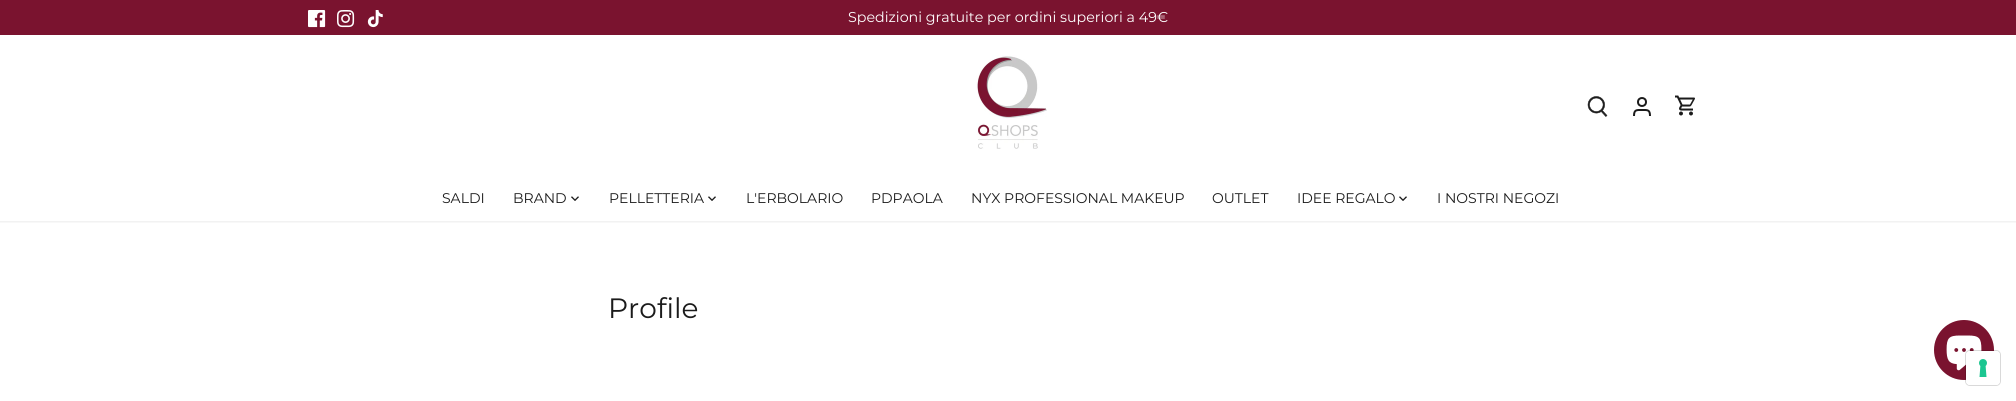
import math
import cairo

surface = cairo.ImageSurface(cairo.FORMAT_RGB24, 2016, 401)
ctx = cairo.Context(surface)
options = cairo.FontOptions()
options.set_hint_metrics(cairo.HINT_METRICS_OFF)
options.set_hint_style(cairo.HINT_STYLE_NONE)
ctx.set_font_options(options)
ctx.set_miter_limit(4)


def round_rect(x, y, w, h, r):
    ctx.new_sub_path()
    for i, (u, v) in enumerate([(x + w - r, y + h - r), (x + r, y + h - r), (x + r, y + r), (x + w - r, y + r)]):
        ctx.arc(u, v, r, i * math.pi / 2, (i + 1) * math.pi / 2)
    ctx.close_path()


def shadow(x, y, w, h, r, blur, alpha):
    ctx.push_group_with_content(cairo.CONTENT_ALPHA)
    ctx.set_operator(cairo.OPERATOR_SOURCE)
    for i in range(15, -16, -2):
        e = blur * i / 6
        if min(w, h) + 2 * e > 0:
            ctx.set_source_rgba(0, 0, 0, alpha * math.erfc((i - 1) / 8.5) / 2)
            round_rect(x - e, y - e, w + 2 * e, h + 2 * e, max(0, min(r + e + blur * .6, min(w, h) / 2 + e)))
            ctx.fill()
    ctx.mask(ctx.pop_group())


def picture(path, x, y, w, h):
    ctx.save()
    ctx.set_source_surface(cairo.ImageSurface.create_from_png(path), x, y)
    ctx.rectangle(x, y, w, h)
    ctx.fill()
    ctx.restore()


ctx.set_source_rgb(1, 1, 1)
ctx.paint()
ctx.save()
ctx.rectangle(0, 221, 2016, 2)
ctx.clip()
ctx.set_source_rgb(0, 0, 0)
shadow(-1, 34, 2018, 188, 0, 1.5, 0.08)
ctx.restore()
ctx.set_source_rgb(0.478, 0.075, 0.184)
ctx.rectangle(0, 0, 2016, 35)
ctx.fill()
picture("img1.png", 308, 10, 18, 18)
picture("img2.png", 337, 10, 18, 18)
picture("img3.png", 367, 10, 16, 18)
ctx.select_font_face("Montserrat")
ctx.set_font_size(14.25)
ctx.set_source_rgb(1, 1, 1)
ctx.move_to(848, 22)
ctx.show_text("Spedizioni gratuite per ordini superiori a 49€")
picture("img4.png", 976, 55, 71, 94)
picture("img5.png", 1587, 96, 21, 21)
ctx.arc(1642, 102, 4, 0, 2 * math.pi)
ctx.set_source_rgb(0.106, 0.106, 0.106)
ctx.stroke()
ctx.new_path()
ctx.move_to(1650, 116)
ctx.curve_to(1650, 109.5, 1647.5, 110, 1642, 110)
ctx.curve_to(1636.5, 110, 1634, 109.5, 1634, 116)
ctx.stroke()
picture("img6.png", 1675, 95, 20, 21)
ctx.set_font_size(14)
ctx.move_to(442, 203)
ctx.show_text("SALDI")
ctx.move_to(513, 203)
ctx.show_text("BRAND")
picture("img7.png", 571, 196, 8, 5)
ctx.move_to(609, 203)
ctx.show_text("PELLETTERIA")
picture("img7.png", 708, 196, 8, 5)
ctx.move_to(746, 203)
ctx.show_text("L'ERBOLARIO")
ctx.move_to(871, 203)
ctx.show_text("PDPAOLA")
ctx.move_to(971, 203)
ctx.show_text("NYX PROFESSIONAL MAKEUP")
ctx.move_to(1212, 203)
ctx.show_text("OUTLET")
ctx.move_to(1297, 203)
ctx.show_text("IDEE REGALO")
picture("img7.png", 1399, 196, 8, 5)
ctx.move_to(1437, 203)
ctx.show_text("I NOSTRI NEGOZI")
ctx.set_font_size(28)
ctx.move_to(608, 318)
ctx.show_text("Profile")
ctx.set_source_rgb(0.478, 0.075, 0.184)
ctx.new_path()
ctx.arc(1964, 350, 30, 0, 2 * math.pi)
ctx.fill()
picture("img8.png", 1946, 335, 36, 36)
round_rect(1965.5, 350.5, 35, 35, 4.5)
ctx.set_source_rgba(0, 0, 0, 0.15)
ctx.set_line_width(1)
ctx.stroke()
ctx.set_source_rgb(1, 1, 1)
round_rect(1966, 351, 34, 34, 4)
ctx.fill()
picture("img9.png", 1979, 359, 8, 18)
surface.write_to_png("page.png")
